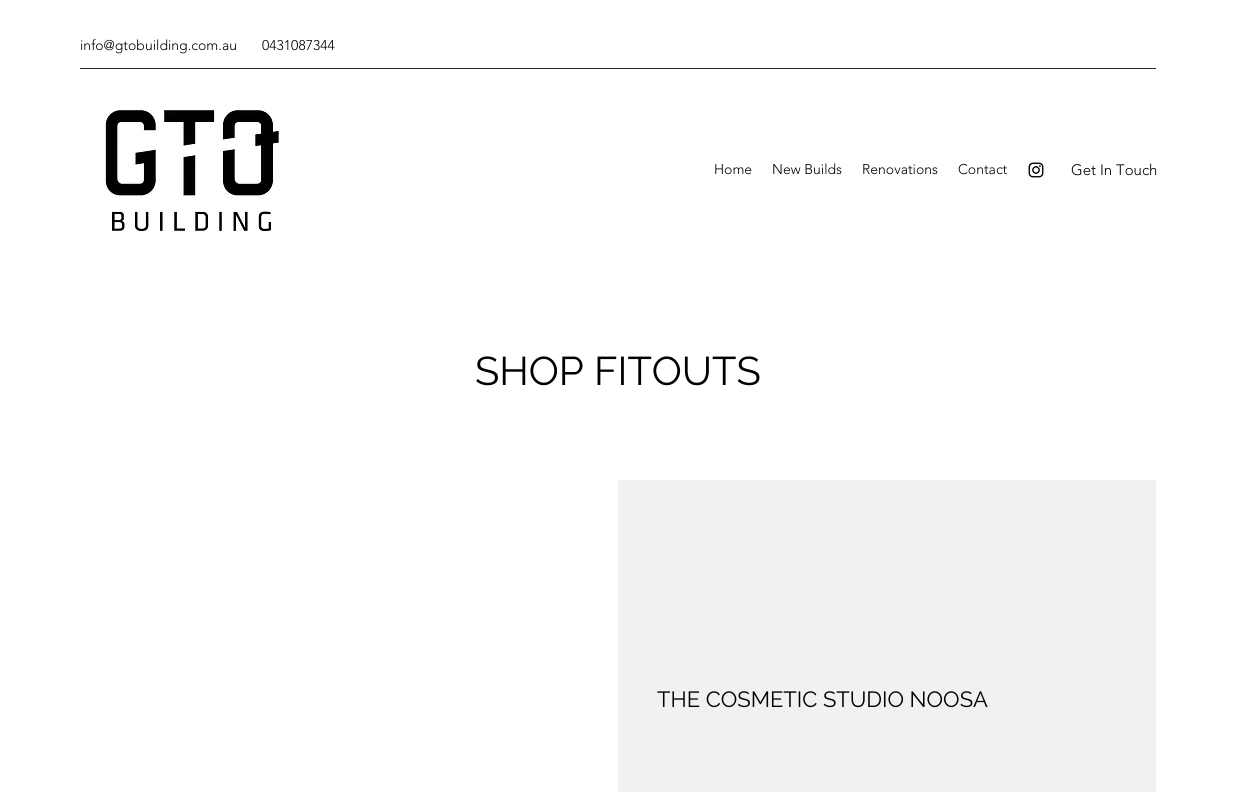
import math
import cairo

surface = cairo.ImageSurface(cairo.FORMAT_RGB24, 1236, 792)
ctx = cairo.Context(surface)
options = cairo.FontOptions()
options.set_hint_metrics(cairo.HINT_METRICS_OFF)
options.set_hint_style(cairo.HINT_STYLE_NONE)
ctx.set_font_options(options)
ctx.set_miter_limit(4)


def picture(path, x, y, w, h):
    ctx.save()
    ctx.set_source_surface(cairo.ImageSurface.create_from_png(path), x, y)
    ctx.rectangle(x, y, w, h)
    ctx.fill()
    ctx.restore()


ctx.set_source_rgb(1, 1, 1)
ctx.paint()
ctx.select_font_face("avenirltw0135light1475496 Light")
ctx.set_font_size(14)
ctx.set_source_rgb(0, 0, 0)
ctx.move_to(80, 50)
ctx.show_text("info@gtobuilding.com.au")
ctx.move_to(262, 50)
ctx.show_text("0431087344")
ctx.set_source_rgb(0.149, 0.149, 0.149)
ctx.rectangle(80, 68, 1076, 1)
ctx.fill()
picture("img1.png", 104, 110, 176, 124)
ctx.set_source_rgb(0, 0, 0)
ctx.move_to(714, 174)
ctx.show_text("Home")
ctx.move_to(772, 174)
ctx.show_text("New Builds")
ctx.move_to(862, 174)
ctx.show_text("Renovations")
ctx.move_to(958, 174)
ctx.show_text("Contact")
picture("img2.png", 1028, 162, 16, 16)
ctx.set_font_size(15)
ctx.move_to(1071, 175)
ctx.show_text("Get In Touch")
ctx.select_font_face("Raleway")
ctx.set_font_size(40)
ctx.move_to(475, 385)
ctx.show_text("SHOP FITOUTS")
ctx.set_source_rgb(0.945, 0.945, 0.945)
ctx.rectangle(618, 480, 538, 312)
ctx.fill()
ctx.set_font_size(22)
ctx.set_source_rgb(0, 0, 0)
ctx.move_to(657, 707)
ctx.show_text("THE COSMETIC STUDIO NOOSA")
surface.write_to_png("page.png")
